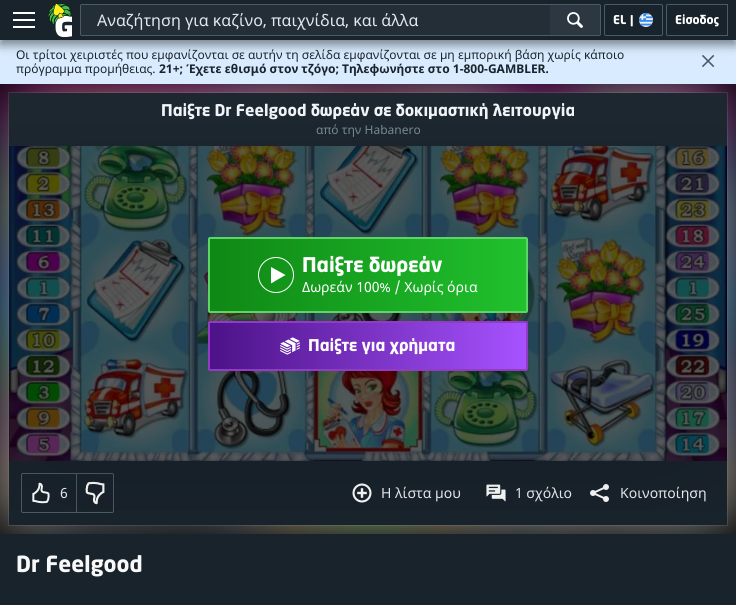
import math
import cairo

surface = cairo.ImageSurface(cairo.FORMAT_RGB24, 736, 605)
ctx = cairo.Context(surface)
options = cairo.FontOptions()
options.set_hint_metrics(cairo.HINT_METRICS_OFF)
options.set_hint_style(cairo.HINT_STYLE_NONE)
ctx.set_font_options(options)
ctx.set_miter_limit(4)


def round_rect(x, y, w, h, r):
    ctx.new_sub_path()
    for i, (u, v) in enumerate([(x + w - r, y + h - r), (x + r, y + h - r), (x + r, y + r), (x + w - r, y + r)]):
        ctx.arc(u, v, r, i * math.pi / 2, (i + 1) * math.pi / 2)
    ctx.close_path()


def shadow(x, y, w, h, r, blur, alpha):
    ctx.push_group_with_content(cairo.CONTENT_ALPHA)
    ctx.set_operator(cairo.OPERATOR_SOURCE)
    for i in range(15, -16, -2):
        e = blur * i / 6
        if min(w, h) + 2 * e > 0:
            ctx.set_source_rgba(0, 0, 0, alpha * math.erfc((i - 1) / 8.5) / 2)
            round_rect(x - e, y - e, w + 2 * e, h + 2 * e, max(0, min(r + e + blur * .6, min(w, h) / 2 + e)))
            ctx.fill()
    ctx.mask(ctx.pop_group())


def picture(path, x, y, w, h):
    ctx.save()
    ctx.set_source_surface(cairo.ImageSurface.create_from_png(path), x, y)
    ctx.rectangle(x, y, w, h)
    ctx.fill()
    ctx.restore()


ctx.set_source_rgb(0.851, 0.925, 1)
ctx.paint()
picture("img4.png", 702, 54, 13, 14)
ctx.set_source_rgb(0, 0, 0)
shadow(0, 5, 736, 40, 0, 5, 0.45)
ctx.set_source_rgb(0.098, 0.137, 0.173)
ctx.rectangle(0, 0, 736, 40)
ctx.fill()
ctx.set_source_rgb(1, 1, 1)
ctx.rectangle(13, 12, 22, 2)
ctx.fill()
ctx.rectangle(13, 19, 22, 2)
ctx.fill()
ctx.rectangle(13, 26, 22, 2)
ctx.fill()
picture("img1.png", 48, 3, 24, 34)
ctx.set_source_rgb(0.137, 0.18, 0.216)
round_rect(80.5, 4.5, 520, 31, 1.5)
ctx.fill_preserve()
ctx.set_source_rgb(0.29, 0.357, 0.408)
ctx.set_line_width(1)
ctx.stroke()
ctx.select_font_face("Noto Sans")
ctx.set_font_size(16)
ctx.set_source_rgb(0.89, 0.906, 0.937)
ctx.move_to(97, 26)
ctx.show_text("Αναζήτηση για καζίνο, παιχνίδια, και άλλα")
ctx.set_source_rgb(0.173, 0.216, 0.255)
ctx.new_path()
ctx.move_to(550, 5)
ctx.line_to(598, 5)
ctx.curve_to(599, 5, 600, 6, 600, 7)
ctx.line_to(600, 33)
ctx.curve_to(600, 34, 599, 35, 598, 35)
ctx.line_to(550, 35)
ctx.close_path()
ctx.fill()
picture("img2.png", 567, 12, 16, 16)
round_rect(604.5, 4.5, 58, 31, 1.5)
ctx.set_source_rgb(0.29, 0.357, 0.408)
ctx.stroke()
ctx.select_font_face("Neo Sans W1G", cairo.FONT_SLANT_NORMAL, cairo.FONT_WEIGHT_BOLD)
ctx.set_font_size(12)
ctx.set_source_rgb(1, 1, 1)
ctx.move_to(613, 24)
ctx.show_text("EL")
ctx.move_to(630, 24)
ctx.show_text("|")
picture("img3.png", 639, 13, 14, 14)
ctx.new_path()
ctx.move_to(668, 4.5)
ctx.line_to(727.5, 4.5)
ctx.line_to(727.5, 35.5)
ctx.line_to(668, 35.5)
ctx.curve_to(667, 35.5, 666.5, 35, 666.5, 34)
ctx.line_to(666.5, 6)
ctx.curve_to(666.5, 5, 667, 4.5, 668, 4.5)
ctx.close_path()
ctx.set_source_rgb(0.29, 0.357, 0.408)
ctx.stroke()
ctx.set_source_rgb(1, 1, 1)
ctx.move_to(675, 24)
ctx.show_text("Είσοδος")
ctx.select_font_face("Noto Sans")
ctx.set_source_rgb(0.098, 0.137, 0.173)
ctx.move_to(16, 59)
ctx.show_text("Οι τρίτοι χειριστές που εμφανίζονται σε αυτήν τη σελίδα εμφανίζονται σε μη εμπορική βάση χωρίς κάποιο")
ctx.move_to(16, 73)
ctx.show_text("πρόγραμμα προμήθειας.")
ctx.select_font_face("Noto Sans", cairo.FONT_SLANT_NORMAL, cairo.FONT_WEIGHT_BOLD)
ctx.move_to(159, 73)
ctx.show_text("21+; Έχετε εθισμό στον τζόγο; Τηλεφωνήστε στο 1-800-GAMBLER.")
ctx.set_source_rgb(0, 0, 0)
ctx.rectangle(0, 84, 736, 450)
ctx.fill()
picture("img5.png", 0, 84, 736, 450)
ctx.rectangle(8.5, 92.5, 719, 433)
ctx.set_source_rgba(1, 1, 1, 0.1)
ctx.stroke()
ctx.set_source_rgb(0.114, 0.153, 0.188)
ctx.rectangle(9, 93, 718, 53)
ctx.fill()
ctx.select_font_face("Neo Sans W1G", cairo.FONT_SLANT_NORMAL, cairo.FONT_WEIGHT_BOLD)
ctx.set_font_size(16)
ctx.set_source_rgb(0.941, 0.953, 0.969)
ctx.move_to(161, 116)
ctx.show_text("Παίξτε Dr Feelgood δωρεάν σε δοκιμαστική λειτουργία")
ctx.select_font_face("Noto Sans")
ctx.set_font_size(12)
ctx.set_source_rgb(0.482, 0.549, 0.596)
ctx.move_to(316, 134)
ctx.show_text("από την Habanero")
ctx.set_source_rgb(0, 0, 0)
ctx.rectangle(9, 146, 718, 315)
ctx.fill()
ctx.set_source_rgb(0.098, 0.137, 0.173)
ctx.rectangle(9, 461, 718, 64)
ctx.fill()
round_rect(21.5, 473.5, 92, 39, 1.5)
ctx.set_source_rgb(0.29, 0.357, 0.408)
ctx.stroke()
picture("img8.png", 32, 482, 18, 22)
ctx.set_font_size(14)
ctx.set_source_rgb(0.941, 0.953, 0.969)
ctx.move_to(60, 498)
ctx.show_text("6")
ctx.set_source_rgb(0.29, 0.357, 0.408)
ctx.rectangle(76, 474, 1, 38)
ctx.fill()
picture("img9.png", 85, 481, 20, 24)
picture("img10.png", 352, 483, 20, 20)
ctx.set_source_rgb(0.941, 0.953, 0.969)
ctx.move_to(381, 498)
ctx.show_text("Η λίστα μου")
picture("img11.png", 486, 484, 20, 18)
ctx.move_to(515, 498)
ctx.show_text("1 σχόλιο")
picture("img12.png", 590, 484, 19, 18)
ctx.move_to(620, 498)
ctx.show_text("Κοινοποίηση")
picture("img6.png", 8, 122, 720, 389)
gradient = cairo.LinearGradient(526, 275, 210, 275)
gradient.add_color_stop_rgba(0, 0.129, 0.757, 0.18, 1)
gradient.add_color_stop_rgba(1, 0.059, 0.533, 0.082, 1)
ctx.set_source(gradient)
ctx.rectangle(210, 239, 316, 72)
ctx.fill()
round_rect(209, 238, 318, 74, 1)
ctx.set_source_rgb(0.365, 0.839, 0.404)
ctx.set_line_width(2)
ctx.stroke()
ctx.arc(276, 275, 17.5, 0, 2 * math.pi)
ctx.set_source_rgb(1, 1, 1)
ctx.set_line_width(1)
ctx.stroke()
ctx.new_path()
ctx.move_to(271, 267)
ctx.line_to(271, 280.5)
ctx.curve_to(271, 285, 270.5, 283.5, 276, 280.5)
ctx.line_to(285.5, 275)
ctx.close_path()
ctx.fill()
ctx.select_font_face("Neo Sans W1G", cairo.FONT_SLANT_NORMAL, cairo.FONT_WEIGHT_BOLD)
ctx.set_font_size(20)
ctx.move_to(302, 272)
ctx.show_text("Παίξτε δωρεάν")
ctx.select_font_face("Noto Sans")
ctx.set_font_size(14)
ctx.move_to(302, 292)
ctx.show_text("Δωρεάν 100% / Χωρίς όρια")
gradient = cairo.LinearGradient(210, 346, 526, 346)
gradient.add_color_stop_rgba(0, 0.298, 0.071, 0.529, 1)
gradient.add_color_stop_rgba(1, 0.655, 0.322, 1, 1)
ctx.set_source(gradient)
ctx.rectangle(210, 323, 316, 46)
ctx.fill()
round_rect(209, 322, 318, 48, 1)
ctx.set_source_rgb(0.584, 0.224, 0.78)
ctx.set_line_width(2)
ctx.stroke()
picture("img7.png", 280, 337, 20, 18)
ctx.select_font_face("Neo Sans W1G", cairo.FONT_SLANT_NORMAL, cairo.FONT_WEIGHT_BOLD)
ctx.set_font_size(16)
ctx.set_source_rgb(1, 1, 1)
ctx.move_to(308, 351)
ctx.show_text("Παίξτε για χρήματα")
ctx.set_source_rgb(0.098, 0.137, 0.173)
ctx.rectangle(0, 534, 736, 71)
ctx.fill()
ctx.set_font_size(22)
ctx.set_source_rgb(0.973, 0.973, 0.98)
ctx.move_to(16, 572)
ctx.show_text("Dr Feelgood")
surface.write_to_png("page.png")
